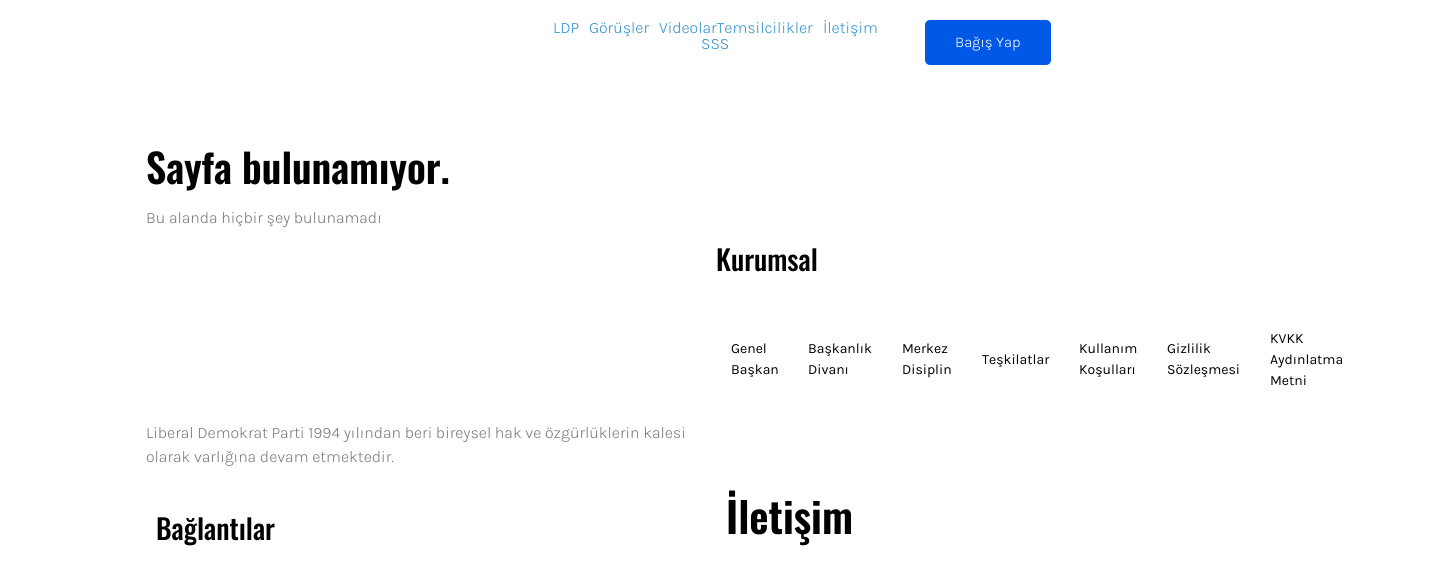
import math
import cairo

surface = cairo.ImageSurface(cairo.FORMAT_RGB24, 1431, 580)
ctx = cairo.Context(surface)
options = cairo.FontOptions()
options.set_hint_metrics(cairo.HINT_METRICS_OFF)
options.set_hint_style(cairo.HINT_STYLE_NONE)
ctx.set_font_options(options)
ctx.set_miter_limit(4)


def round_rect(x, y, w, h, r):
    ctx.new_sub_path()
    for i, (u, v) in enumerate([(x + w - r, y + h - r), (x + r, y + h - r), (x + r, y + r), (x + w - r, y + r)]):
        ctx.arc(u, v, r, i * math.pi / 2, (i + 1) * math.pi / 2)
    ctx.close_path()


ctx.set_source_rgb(1, 1, 1)
ctx.paint()
ctx.select_font_face("Karla Light")
ctx.set_font_size(16)
ctx.set_source_rgb(0.196, 0.569, 0.804)
ctx.move_to(553, 33)
ctx.show_text("LDP")
ctx.move_to(589, 33)
ctx.show_text("Görüşler")
ctx.move_to(659, 33)
ctx.show_text("VideolarTemsilcilikler")
ctx.move_to(823, 33)
ctx.show_text("İletişim")
ctx.move_to(701, 49)
ctx.show_text("SSS")
ctx.set_source_rgb(0, 0.345, 0.902)
round_rect(925, 20, 126, 45, 5)
ctx.fill()
ctx.set_font_size(15)
ctx.set_source_rgb(1, 1, 1)
ctx.move_to(955, 47)
ctx.show_text("Bağış Yap")
ctx.select_font_face("Oswald SemiBold")
ctx.set_font_size(40)
ctx.set_source_rgb(0, 0, 0)
ctx.move_to(146, 184)
ctx.show_text("Sayfa bulunamıyor.")
ctx.select_font_face("Karla Light")
ctx.set_font_size(16)
ctx.set_source_rgb(0.478, 0.478, 0.478)
ctx.move_to(146, 223)
ctx.show_text("Bu alanda hiçbir şey bulunamadı")
ctx.select_font_face("Oswald Medium")
ctx.set_font_size(28)
ctx.set_source_rgb(0, 0, 0)
ctx.move_to(716, 271)
ctx.show_text("Kurumsal")
ctx.select_font_face("Karla")
ctx.set_font_size(14)
ctx.move_to(731, 353)
ctx.show_text("Genel")
ctx.move_to(731, 374)
ctx.show_text("Başkan")
ctx.move_to(808, 353)
ctx.show_text("Başkanlık")
ctx.move_to(808, 374)
ctx.show_text("Divanı")
ctx.move_to(902, 353)
ctx.show_text("Merkez")
ctx.move_to(902, 374)
ctx.show_text("Disiplin")
ctx.move_to(982, 364)
ctx.show_text("Teşkilatlar")
ctx.move_to(1079, 353)
ctx.show_text("Kullanım")
ctx.move_to(1079, 374)
ctx.show_text("Koşulları")
ctx.move_to(1167, 353)
ctx.show_text("Gizlilik")
ctx.move_to(1167, 374)
ctx.show_text("Sözleşmesi")
ctx.move_to(1270, 343)
ctx.show_text("KVKK")
ctx.move_to(1270, 364)
ctx.show_text("Aydınlatma")
ctx.move_to(1270, 385)
ctx.show_text("Metni")
ctx.select_font_face("Karla Light")
ctx.set_font_size(16)
ctx.set_source_rgb(0.478, 0.478, 0.478)
ctx.move_to(146, 438)
ctx.show_text("Liberal Demokrat Parti 1994 yılından beri bireysel hak ve özgürlüklerin kalesi")
ctx.move_to(146, 462)
ctx.show_text("olarak varlığına devam etmektedir.")
ctx.select_font_face("Oswald Medium")
ctx.set_font_size(28)
ctx.set_source_rgb(0, 0, 0)
ctx.move_to(156, 540)
ctx.show_text("Bağlantılar")
ctx.select_font_face("Oswald SemiBold")
ctx.set_font_size(42)
ctx.move_to(726, 534)
ctx.show_text("İletişim")
surface.write_to_png("page.png")
